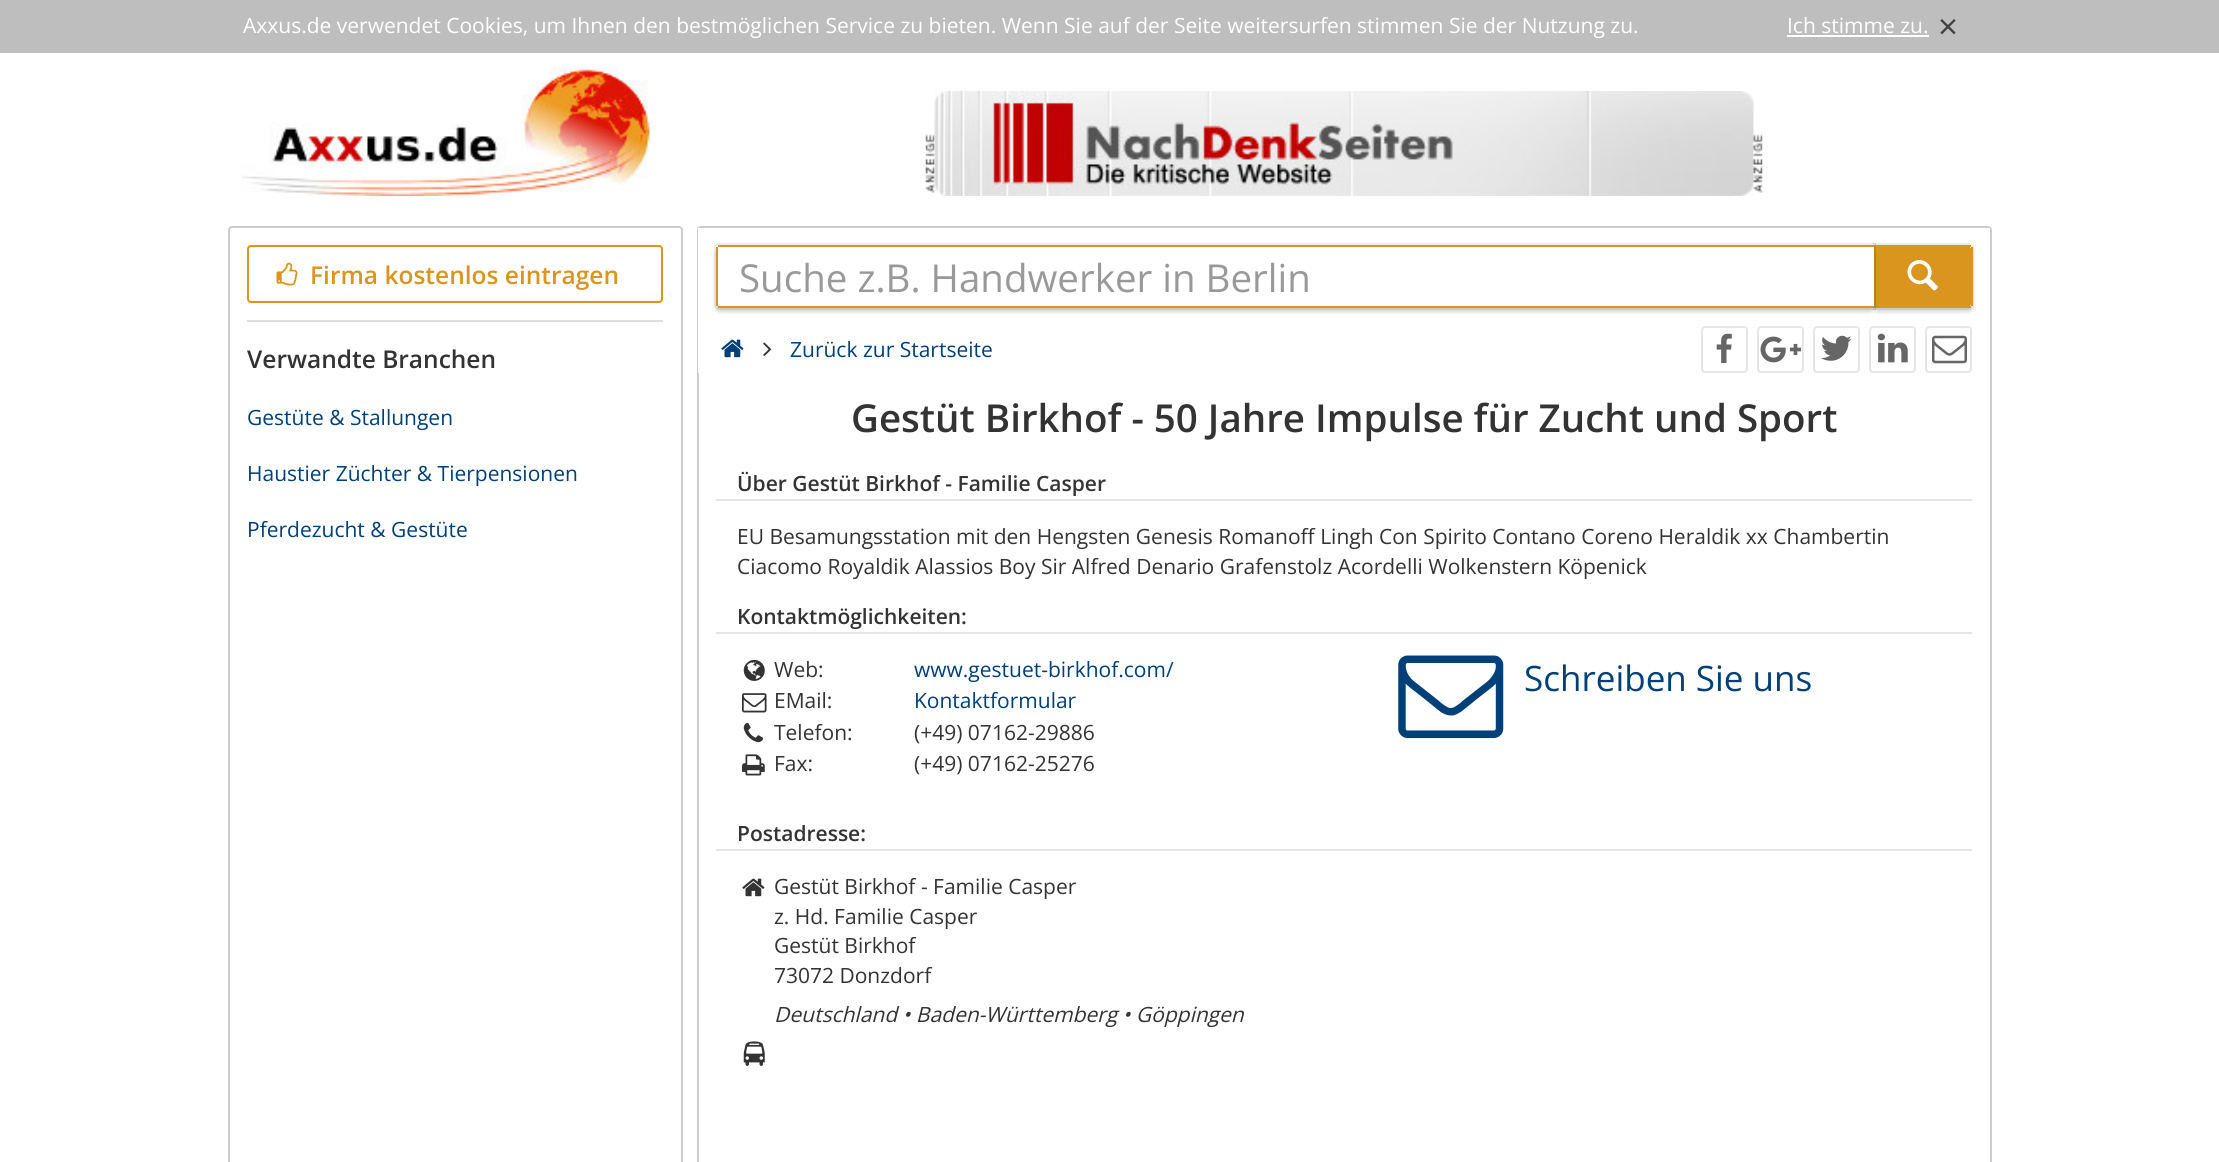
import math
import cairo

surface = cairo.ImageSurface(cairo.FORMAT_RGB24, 2219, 1162)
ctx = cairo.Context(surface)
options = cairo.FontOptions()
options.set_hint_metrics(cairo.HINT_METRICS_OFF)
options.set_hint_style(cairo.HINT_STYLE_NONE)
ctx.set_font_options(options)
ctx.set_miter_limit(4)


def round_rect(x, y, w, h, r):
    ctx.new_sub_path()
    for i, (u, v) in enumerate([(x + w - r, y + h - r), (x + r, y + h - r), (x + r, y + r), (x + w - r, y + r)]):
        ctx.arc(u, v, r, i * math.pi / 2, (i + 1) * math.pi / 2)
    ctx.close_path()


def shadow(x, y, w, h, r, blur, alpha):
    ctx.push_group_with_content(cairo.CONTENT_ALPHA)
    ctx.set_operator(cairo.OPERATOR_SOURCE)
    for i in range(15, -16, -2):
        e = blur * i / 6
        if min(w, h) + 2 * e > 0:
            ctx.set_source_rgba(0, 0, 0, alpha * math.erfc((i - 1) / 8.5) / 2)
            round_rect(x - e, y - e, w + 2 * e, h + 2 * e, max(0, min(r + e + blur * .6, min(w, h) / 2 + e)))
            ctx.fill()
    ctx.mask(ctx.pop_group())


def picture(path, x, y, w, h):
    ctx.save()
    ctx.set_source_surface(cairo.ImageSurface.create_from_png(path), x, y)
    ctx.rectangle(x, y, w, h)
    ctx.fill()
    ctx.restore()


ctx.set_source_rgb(1, 1, 1)
ctx.paint()
ctx.set_source_rgb(0.745, 0.745, 0.745)
ctx.rectangle(0, 0, 2219, 53)
ctx.fill()
ctx.select_font_face("Open Sans")
ctx.set_font_size(21)
ctx.set_source_rgb(1, 1, 1)
ctx.move_to(243, 33)
ctx.show_text("Axxus.de verwendet Cookies, um Ihnen den bestmöglichen Service zu bieten. Wenn Sie auf der Seite weitersurfen stimmen Sie der Nutzung zu.")
ctx.move_to(1787, 33)
ctx.show_text("Ich stimme zu.")
ctx.rectangle(1787, 35, 142, 2)
ctx.fill()
ctx.set_font_size(35)
ctx.set_source_rgb(0.251, 0.251, 0.251)
ctx.move_to(1938, 39)
ctx.show_text("×")
picture("img1.png", 241, 66, 410, 130)
picture("img2.png", 925, 134, 10, 59)
picture("img3.png", 934, 91, 820, 105)
picture("img4.png", 1753, 133, 10, 60)
round_rect(229, 227, 453, 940, 3)
ctx.set_source_rgb(0.8, 0.8, 0.8)
ctx.stroke()
round_rect(248, 246, 414, 56, 3)
ctx.set_source_rgb(0.851, 0.584, 0.114)
ctx.stroke()
picture("img5.png", 276, 262, 22, 24)
ctx.select_font_face("Open Sans SemiBold")
ctx.set_font_size(24.5)
ctx.move_to(310, 284)
ctx.show_text("Firma kostenlos eintragen")
ctx.set_source_rgb(0.867, 0.867, 0.867)
ctx.rectangle(247, 320, 416, 2)
ctx.fill()
ctx.set_source_rgb(0.2, 0.2, 0.2)
ctx.move_to(247, 368)
ctx.show_text("Verwandte Branchen")
ctx.select_font_face("Open Sans")
ctx.set_font_size(21)
ctx.set_source_rgb(0, 0.251, 0.471)
ctx.move_to(247, 425)
ctx.show_text("Gestüte & Stallungen")
ctx.move_to(247, 481)
ctx.show_text("Haustier Züchter & Tierpensionen")
ctx.move_to(247, 537)
ctx.show_text("Pferdezucht & Gestüte")
round_rect(698, 227, 1293, 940, 3)
ctx.set_source_rgb(0.8, 0.8, 0.8)
ctx.stroke()
ctx.set_source_rgb(1, 1, 1)
ctx.rectangle(698, 228, 1292, 98)
ctx.fill()
ctx.new_path()
ctx.move_to(1874, 244)
ctx.line_to(1969, 244)
ctx.curve_to(1971, 244, 1973, 246, 1973, 248)
ctx.line_to(1973, 305)
ctx.curve_to(1973, 307, 1971, 309, 1969, 309)
ctx.line_to(1874, 309)
ctx.close_path()
ctx.set_source_rgb(0.922, 0.922, 0.922)
ctx.stroke()
ctx.set_source_rgb(0, 0, 0)
shadow(1874, 249, 98, 63, 4, 2, 0.16)
ctx.set_source_rgb(0.851, 0.584, 0.114)
ctx.new_path()
ctx.move_to(1874, 247)
ctx.line_to(1969, 247)
ctx.curve_to(1970, 247, 1971, 248, 1971, 249)
ctx.line_to(1971, 304)
ctx.curve_to(1971, 305, 1970, 306, 1969, 306)
ctx.line_to(1874, 306)
ctx.close_path()
ctx.fill()
ctx.rectangle(1874, 245, 97, 2)
ctx.fill()
ctx.rectangle(1874, 306, 97, 2)
ctx.fill()
ctx.new_path()
ctx.move_to(719, 244)
ctx.line_to(1875, 244)
ctx.line_to(1875, 309)
ctx.line_to(719, 309)
ctx.curve_to(717, 309, 715, 307, 715, 305)
ctx.line_to(715, 248)
ctx.curve_to(715, 246, 717, 244, 719, 244)
ctx.close_path()
ctx.set_source_rgba(0, 0, 0, 0.08)
ctx.stroke()
ctx.set_source_rgb(0, 0, 0)
shadow(716, 249, 1158, 63, 4, 2, 0.16)
ctx.set_source_rgb(1, 1, 1)
ctx.new_path()
ctx.move_to(720, 247)
ctx.line_to(1874, 247)
ctx.line_to(1874, 306)
ctx.line_to(720, 306)
ctx.curve_to(719, 306, 718, 305, 718, 304)
ctx.line_to(718, 249)
ctx.curve_to(718, 248, 719, 247, 720, 247)
ctx.close_path()
ctx.fill()
ctx.set_source_rgb(0.851, 0.584, 0.114)
ctx.rectangle(718, 245, 1156, 2)
ctx.fill()
ctx.rectangle(718, 306, 1156, 2)
ctx.fill()
ctx.rectangle(716, 247, 2, 59)
ctx.fill()
ctx.set_font_size(38.5)
ctx.set_source_rgb(0.6, 0.6, 0.6)
ctx.move_to(739, 292)
ctx.show_text("Suche z.B. Handwerker in Berlin")
ctx.set_source_rgb(0.851, 0.584, 0.114)
ctx.rectangle(1971, 247, 2, 59)
ctx.fill()
picture("img6.png", 1907, 260, 31, 31)
ctx.set_source_rgb(1, 1, 1)
ctx.rectangle(698, 326, 1, 47)
ctx.fill()
picture("img7.png", 721, 339, 23, 19)
picture("img8.png", 763, 342, 9, 15)
ctx.set_font_size(21)
ctx.set_source_rgb(0, 0.251, 0.471)
ctx.move_to(790, 357)
ctx.show_text("Zurück zur Startseite")
round_rect(1702, 327, 45, 45, 3)
ctx.set_source_rgb(0.902, 0.902, 0.902)
ctx.stroke()
picture("img9.png", 1716, 333, 16, 30)
round_rect(1758, 327, 45, 45, 3)
ctx.stroke()
picture("img10.png", 1760, 336, 41, 27)
round_rect(1814, 327, 45, 45, 3)
ctx.stroke()
picture("img11.png", 1821, 335, 31, 26)
round_rect(1870, 327, 45, 45, 3)
ctx.stroke()
picture("img12.png", 1877, 333, 31, 30)
round_rect(1926, 327, 45, 45, 3)
ctx.stroke()
picture("img13.png", 1932, 335, 35, 29)
ctx.select_font_face("Open Sans SemiBold")
ctx.set_font_size(38.5)
ctx.set_source_rgb(0.2, 0.2, 0.2)
ctx.move_to(851, 432)
ctx.show_text("Gestüt Birkhof - 50 Jahre Impulse für Zucht und Sport")
ctx.set_font_size(21)
ctx.move_to(737, 491)
ctx.show_text("Über Gestüt Birkhof - Familie Casper")
ctx.set_source_rgb(0.898, 0.898, 0.898)
ctx.rectangle(716, 499, 1256, 2)
ctx.fill()
ctx.select_font_face("Open Sans")
ctx.set_source_rgb(0.2, 0.2, 0.2)
ctx.move_to(737, 544)
ctx.show_text("EU Besamungsstation mit den Hengsten Genesis Romanoff Lingh Con Spirito Contano Coreno Heraldik xx Chambertin")
ctx.move_to(737, 574)
ctx.show_text("Ciacomo Royaldik Alassios Boy Sir Alfred Denario Grafenstolz Acordelli Wolkenstern Köpenick")
ctx.select_font_face("Open Sans SemiBold")
ctx.move_to(737, 624)
ctx.show_text("Kontaktmöglichkeiten:")
ctx.set_source_rgb(0.898, 0.898, 0.898)
ctx.rectangle(716, 632, 1256, 2)
ctx.fill()
picture("img14.png", 743, 659, 22, 22)
ctx.select_font_face("Open Sans")
ctx.set_source_rgb(0.2, 0.2, 0.2)
ctx.move_to(774, 677)
ctx.show_text("Web:")
ctx.set_source_rgb(0, 0.251, 0.471)
ctx.move_to(914, 677)
ctx.show_text("www.gestuet-birkhof.com/")
picture("img15.png", 742, 693, 25, 20)
ctx.set_source_rgb(0.2, 0.2, 0.2)
ctx.move_to(774, 708)
ctx.show_text("EMail:")
ctx.set_source_rgb(0, 0.251, 0.471)
ctx.move_to(914, 708)
ctx.show_text("Kontaktformular")
picture("img16.png", 743, 722, 20, 21)
ctx.set_source_rgb(0.2, 0.2, 0.2)
ctx.move_to(774, 740)
ctx.show_text("Telefon:")
ctx.move_to(914, 740)
ctx.show_text("(+49) 07162-29886")
picture("img17.png", 742, 754, 23, 22)
ctx.move_to(774, 771)
ctx.show_text("Fax:")
ctx.move_to(914, 771)
ctx.show_text("(+49) 07162-25276")
picture("img18.png", 1398, 655, 106, 84)
ctx.set_font_size(35)
ctx.set_source_rgb(0, 0.251, 0.471)
ctx.move_to(1524, 691)
ctx.show_text("Schreiben Sie uns")
ctx.select_font_face("Open Sans SemiBold")
ctx.set_font_size(21)
ctx.set_source_rgb(0.2, 0.2, 0.2)
ctx.move_to(737, 841)
ctx.show_text("Postadresse:")
ctx.set_source_rgb(0.898, 0.898, 0.898)
ctx.rectangle(716, 849, 1256, 2)
ctx.fill()
picture("img19.png", 742, 878, 23, 19)
ctx.select_font_face("Open Sans")
ctx.set_source_rgb(0.2, 0.2, 0.2)
ctx.move_to(774, 894)
ctx.show_text("Gestüt Birkhof - Familie Casper")
ctx.move_to(774, 924)
ctx.show_text("z. Hd. Familie Casper")
ctx.move_to(774, 953)
ctx.show_text("Gestüt Birkhof")
ctx.move_to(774, 983)
ctx.show_text("73072 Donzdorf")
ctx.select_font_face("Open Sans", cairo.FONT_SLANT_ITALIC)
ctx.move_to(774, 1022)
ctx.show_text("Deutschland • Baden-Württemberg • Göppingen")
picture("img20.png", 743, 1041, 22, 25)
surface.write_to_png("page.png")
